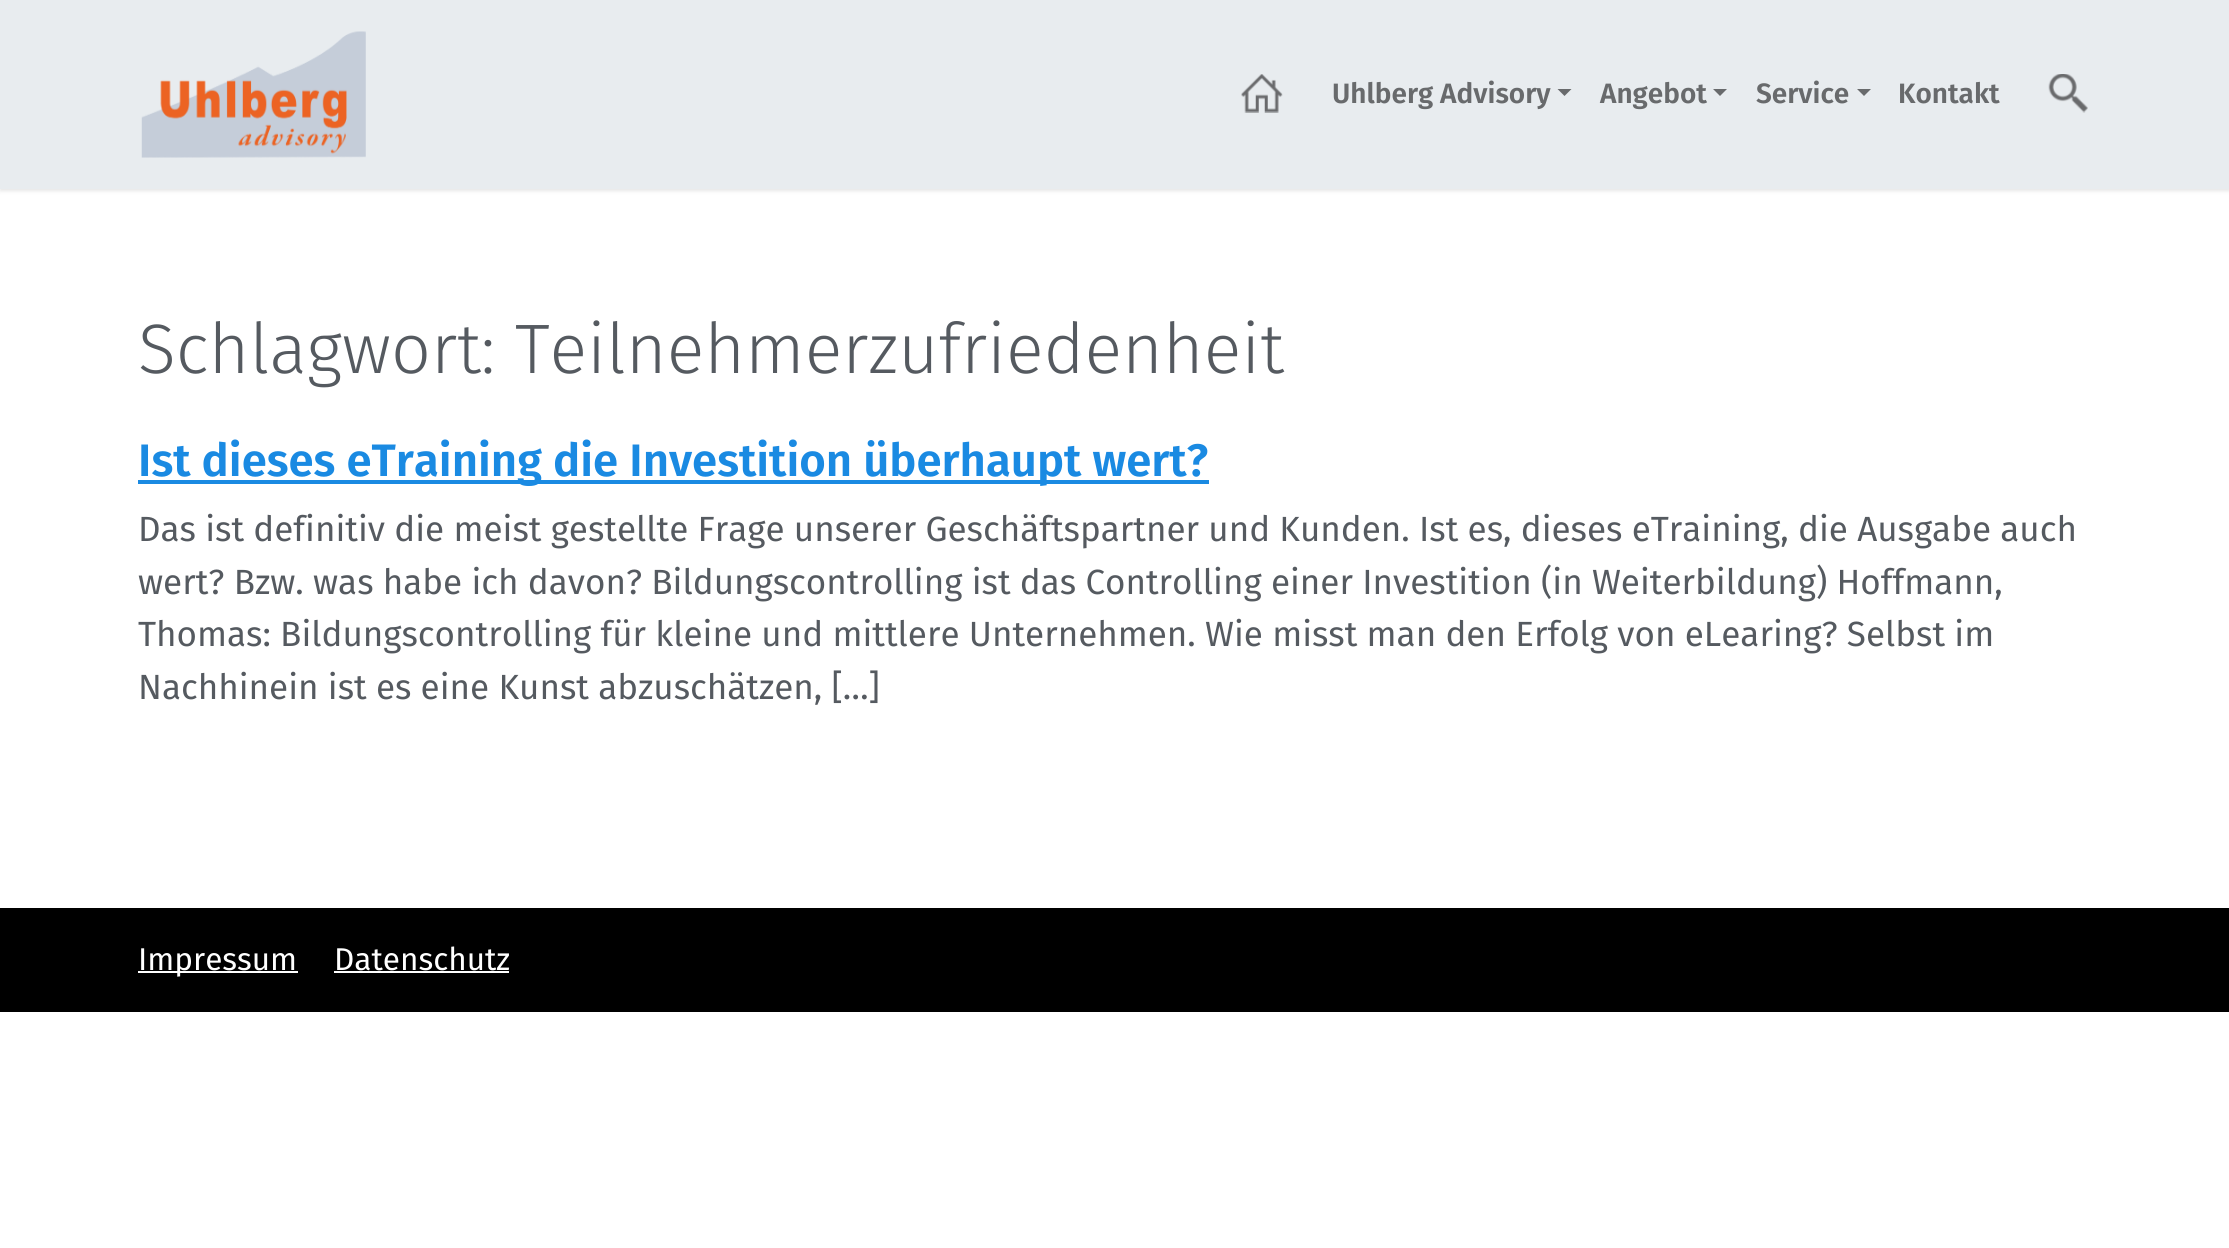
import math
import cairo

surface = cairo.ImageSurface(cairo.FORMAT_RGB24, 2229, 1248)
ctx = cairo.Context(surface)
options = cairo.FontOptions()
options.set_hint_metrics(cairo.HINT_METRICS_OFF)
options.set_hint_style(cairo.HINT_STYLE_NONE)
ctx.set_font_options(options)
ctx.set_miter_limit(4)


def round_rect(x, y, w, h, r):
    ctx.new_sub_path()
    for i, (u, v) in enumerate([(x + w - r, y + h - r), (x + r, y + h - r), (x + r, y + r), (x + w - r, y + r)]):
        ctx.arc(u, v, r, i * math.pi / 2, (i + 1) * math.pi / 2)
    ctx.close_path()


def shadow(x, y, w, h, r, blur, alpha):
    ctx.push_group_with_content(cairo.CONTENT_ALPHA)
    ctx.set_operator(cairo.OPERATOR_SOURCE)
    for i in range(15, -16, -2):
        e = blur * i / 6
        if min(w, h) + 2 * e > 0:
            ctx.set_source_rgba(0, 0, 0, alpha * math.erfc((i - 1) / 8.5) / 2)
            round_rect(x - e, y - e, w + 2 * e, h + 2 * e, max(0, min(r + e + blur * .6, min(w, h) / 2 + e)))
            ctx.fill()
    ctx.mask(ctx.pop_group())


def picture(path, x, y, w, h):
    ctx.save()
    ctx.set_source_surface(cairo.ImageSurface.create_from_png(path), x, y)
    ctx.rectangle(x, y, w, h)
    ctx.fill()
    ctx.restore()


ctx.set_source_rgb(1, 1, 1)
ctx.paint()
ctx.set_source_rgb(0, 0, 0)
shadow(0, 2, 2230, 189, 0, 2, 0.1)
ctx.set_source_rgb(0.91, 0.922, 0.937)
ctx.rectangle(0, 0, 2229, 189)
ctx.fill()
picture("img1.png", 141, 31, 225, 127)
picture("img2.png", 1241, 74, 42, 39)
ctx.select_font_face("Fira Sans SemiBold")
ctx.set_font_size(28)
ctx.set_source_rgb(0.408, 0.416, 0.424)
ctx.move_to(1332, 103)
ctx.show_text("Uhlberg Advisory")
ctx.new_path()
ctx.move_to(1557.5, 89)
ctx.line_to(1571.5, 89)
ctx.line_to(1564.5, 96)
ctx.close_path()
ctx.fill()
ctx.move_to(1600, 103)
ctx.show_text("Angebot")
ctx.new_path()
ctx.move_to(1713, 89)
ctx.line_to(1727, 89)
ctx.line_to(1720, 96)
ctx.close_path()
ctx.fill()
ctx.move_to(1756, 103)
ctx.show_text("Service")
ctx.new_path()
ctx.move_to(1857, 89)
ctx.line_to(1871, 89)
ctx.line_to(1864, 96)
ctx.close_path()
ctx.fill()
ctx.move_to(1898, 103)
ctx.show_text("Kontakt")
picture("img3.png", 2048, 74, 40, 39)
ctx.select_font_face("Fira Sans Light")
ctx.set_font_size(70)
ctx.set_source_rgb(0.333, 0.353, 0.376)
ctx.move_to(138, 373)
ctx.show_text("Schlagwort: Teilnehmerzufriedenheit")
ctx.set_source_rgb(0.102, 0.541, 0.886)
ctx.rectangle(138, 480, 1071, 4)
ctx.fill()
ctx.select_font_face("Fira Sans SemiBold")
ctx.set_font_size(45.5)
ctx.move_to(138, 476)
ctx.show_text("Ist dieses eTraining die Investition überhaupt wert?")
ctx.select_font_face("Fira Sans")
ctx.set_font_size(35)
ctx.set_source_rgb(0.333, 0.353, 0.376)
ctx.move_to(138, 541)
ctx.show_text("Das ist definitiv die meist gestellte Frage unserer Geschäftspartner und Kunden. Ist es, dieses eTraining, die Ausgabe auch")
ctx.move_to(138, 594)
ctx.show_text("wert? Bzw. was habe ich davon? Bildungscontrolling ist das Controlling einer Investition (in Weiterbildung) Hoffmann,")
ctx.move_to(138, 646)
ctx.show_text("Thomas: Bildungscontrolling für kleine und mittlere Unternehmen. Wie misst man den Erfolg von eLearing? Selbst im")
ctx.move_to(138, 699)
ctx.show_text("Nachhinein ist es eine Kunst abzuschätzen, […]")
ctx.set_source_rgb(0, 0, 0)
ctx.rectangle(0, 908, 2229, 104)
ctx.fill()
ctx.set_source_rgb(1, 1, 1)
ctx.rectangle(138, 971, 160, 2)
ctx.fill()
ctx.set_font_size(31.5)
ctx.move_to(138, 970)
ctx.show_text("Impressum")
ctx.move_to(334, 970)
ctx.show_text("Datenschutz")
ctx.rectangle(334, 971, 175, 2)
ctx.fill()
surface.write_to_png("page.png")
